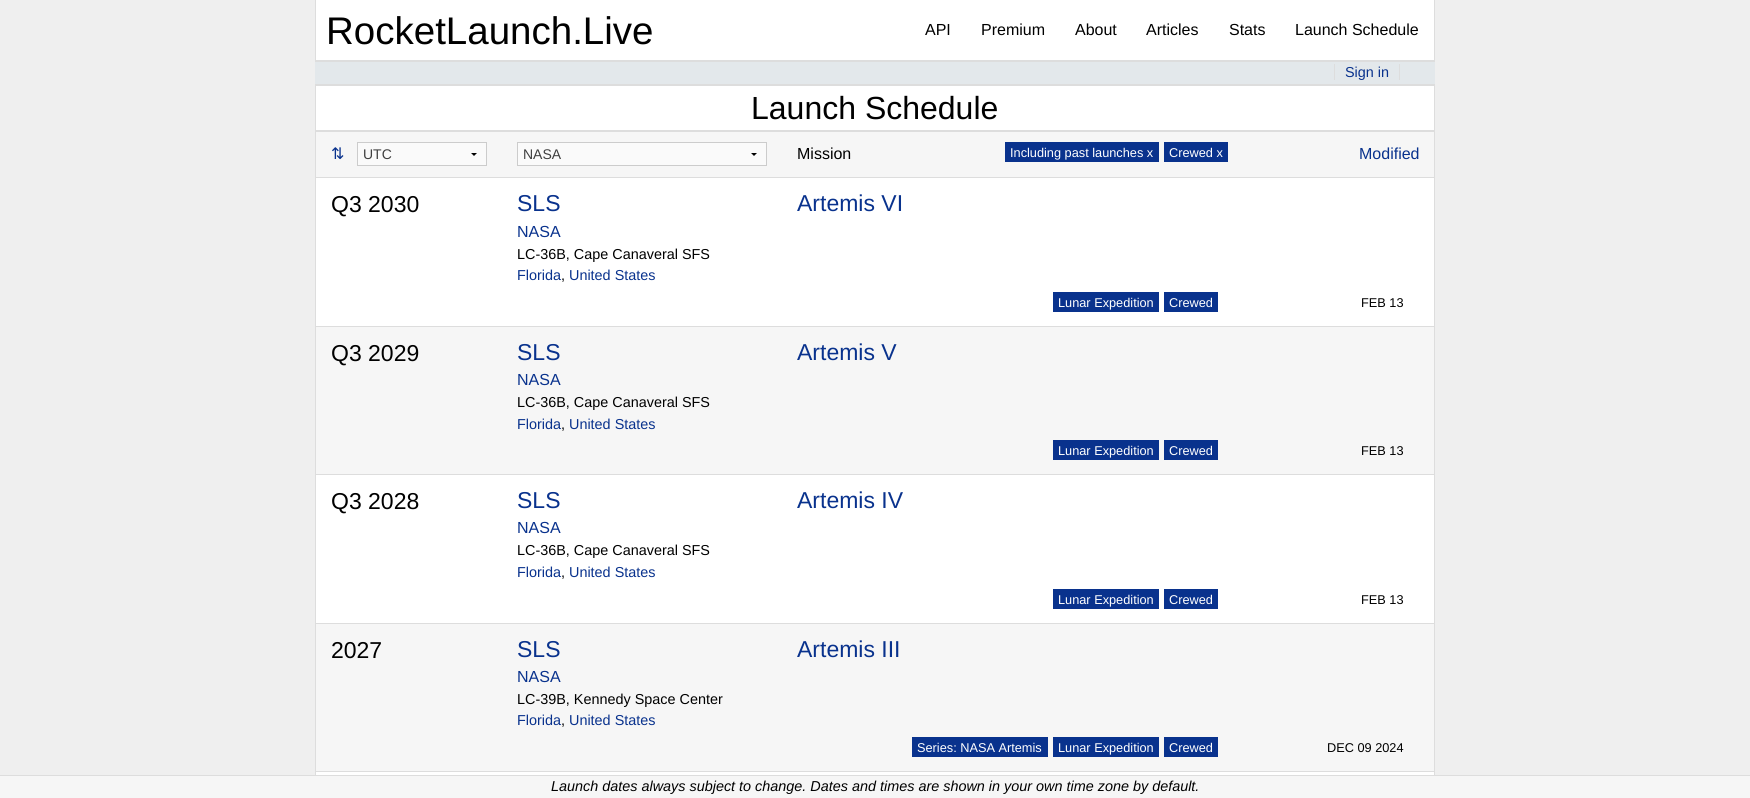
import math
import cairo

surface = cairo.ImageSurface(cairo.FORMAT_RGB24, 1750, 798)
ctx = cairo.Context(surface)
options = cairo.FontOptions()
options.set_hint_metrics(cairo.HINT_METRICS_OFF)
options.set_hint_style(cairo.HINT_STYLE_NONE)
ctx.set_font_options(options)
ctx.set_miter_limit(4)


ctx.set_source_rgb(0.937, 0.937, 0.937)
ctx.paint()
ctx.set_source_rgb(1, 1, 1)
ctx.rectangle(316, 0, 1118, 60)
ctx.fill()
ctx.set_source_rgb(0.867, 0.867, 0.867)
ctx.rectangle(1434, 0, 1, 60)
ctx.fill()
ctx.rectangle(315, 0, 1, 60)
ctx.fill()
ctx.select_font_face("Liberation Sans")
ctx.set_font_size(38.5)
ctx.set_source_rgb(0, 0, 0)
ctx.move_to(326, 44)
ctx.show_text("RocketLaunch.Live")
ctx.set_font_size(16)
ctx.move_to(925, 35)
ctx.show_text("API")
ctx.move_to(981, 35)
ctx.show_text("Premium")
ctx.move_to(1075, 35)
ctx.show_text("About")
ctx.move_to(1146, 35)
ctx.show_text("Articles")
ctx.move_to(1229, 35)
ctx.show_text("Stats")
ctx.move_to(1295, 35)
ctx.show_text("Launch Schedule")
ctx.set_source_rgb(0.89, 0.91, 0.918)
ctx.rectangle(315, 62, 1120, 22)
ctx.fill()
ctx.set_source_rgb(0.867, 0.867, 0.867)
ctx.rectangle(315, 60, 1120, 2)
ctx.fill()
ctx.set_font_size(14.4)
ctx.set_source_rgb(0.039, 0.196, 0.553)
ctx.move_to(1345, 77)
ctx.show_text("Sign in")
ctx.set_source_rgb(0.867, 0.867, 0.867)
ctx.rectangle(1334, 64, 1, 16)
ctx.fill()
ctx.rectangle(1399, 64, 1, 16)
ctx.fill()
ctx.set_source_rgb(1, 1, 1)
ctx.rectangle(316, 86, 1118, 44)
ctx.fill()
ctx.set_source_rgb(0.867, 0.867, 0.867)
ctx.rectangle(315, 84, 1120, 2)
ctx.fill()
ctx.rectangle(1434, 85, 1, 45)
ctx.fill()
ctx.rectangle(315, 85, 1, 45)
ctx.fill()
ctx.set_font_size(32)
ctx.set_source_rgb(0, 0, 0)
ctx.move_to(751, 119)
ctx.show_text("Launch Schedule")
ctx.set_source_rgb(1, 1, 1)
ctx.rectangle(316, 178, 1118, 597)
ctx.fill()
ctx.rectangle(315.5, 130.5, 1119, 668)
ctx.set_source_rgb(0.867, 0.867, 0.867)
ctx.set_line_width(1)
ctx.stroke()
ctx.set_source_rgb(0.961, 0.961, 0.961)
ctx.rectangle(316, 132, 1118, 45)
ctx.fill()
ctx.set_source_rgb(0.867, 0.867, 0.867)
ctx.rectangle(316, 131, 1118, 1)
ctx.fill()
ctx.rectangle(316, 177, 1118, 1)
ctx.fill()
ctx.select_font_face("DejaVu Sans")
ctx.set_font_size(16)
ctx.set_source_rgb(0.039, 0.196, 0.553)
ctx.move_to(331, 159)
ctx.show_text("⇅")
ctx.set_source_rgb(0.98, 0.98, 0.98)
ctx.rectangle(358, 143, 128, 22)
ctx.fill()
ctx.set_source_rgb(0, 0, 0)
ctx.new_path()
ctx.move_to(477, 153)
ctx.line_to(474, 156)
ctx.line_to(471, 153)
ctx.close_path()
ctx.fill()
ctx.rectangle(357.5, 142.5, 129, 23)
ctx.set_source_rgb(0.8, 0.8, 0.8)
ctx.stroke()
ctx.select_font_face("Liberation Sans")
ctx.set_font_size(14)
ctx.set_source_rgb(0.247, 0.247, 0.247)
ctx.move_to(363, 159)
ctx.show_text("UTC")
ctx.set_source_rgb(0.98, 0.98, 0.98)
ctx.rectangle(518, 143, 248, 22)
ctx.fill()
ctx.set_source_rgb(0, 0, 0)
ctx.new_path()
ctx.move_to(757, 153)
ctx.line_to(754, 156)
ctx.line_to(751, 153)
ctx.close_path()
ctx.fill()
ctx.rectangle(517.5, 142.5, 249, 23)
ctx.set_source_rgb(0.8, 0.8, 0.8)
ctx.stroke()
ctx.set_source_rgb(0.247, 0.247, 0.247)
ctx.move_to(523, 159)
ctx.show_text("NASA")
ctx.set_font_size(16)
ctx.set_source_rgb(0, 0, 0)
ctx.move_to(797, 159)
ctx.show_text("Mission")
ctx.set_source_rgb(0.039, 0.196, 0.553)
ctx.rectangle(1005, 142, 154, 20)
ctx.fill()
ctx.set_font_size(12.75)
ctx.set_source_rgb(1, 1, 1)
ctx.move_to(1010, 157)
ctx.show_text("Including past launches x")
ctx.set_source_rgb(0.039, 0.196, 0.553)
ctx.rectangle(1164, 142, 64, 20)
ctx.fill()
ctx.set_source_rgb(1, 1, 1)
ctx.move_to(1169, 157)
ctx.show_text("Crewed x")
ctx.set_font_size(16)
ctx.set_source_rgb(0.039, 0.196, 0.553)
ctx.move_to(1359, 159)
ctx.show_text("Modified")
ctx.set_source_rgb(0.867, 0.867, 0.867)
ctx.rectangle(316, 326, 1118, 1)
ctx.fill()
ctx.set_font_size(23)
ctx.set_source_rgb(0, 0, 0)
ctx.move_to(331, 212)
ctx.show_text("Q3 2030")
ctx.set_source_rgb(0.039, 0.196, 0.553)
ctx.move_to(517, 211)
ctx.show_text("SLS")
ctx.set_font_size(16)
ctx.move_to(517, 237)
ctx.show_text("NASA")
ctx.set_font_size(14.4)
ctx.set_source_rgb(0, 0, 0)
ctx.move_to(517, 259)
ctx.show_text("LC-36B, Cape Canaveral SFS")
ctx.set_source_rgb(0.039, 0.196, 0.553)
ctx.move_to(517, 280)
ctx.show_text("Florida")
ctx.set_source_rgb(0, 0, 0)
ctx.move_to(561, 280)
ctx.show_text(",")
ctx.set_source_rgb(0.039, 0.196, 0.553)
ctx.move_to(569, 280)
ctx.show_text("United States")
ctx.set_font_size(23)
ctx.move_to(797, 211)
ctx.show_text("Artemis VI")
ctx.rectangle(1053, 292, 106, 20)
ctx.fill()
ctx.set_font_size(12.75)
ctx.set_source_rgb(1, 1, 1)
ctx.move_to(1058, 307)
ctx.show_text("Lunar Expedition")
ctx.set_source_rgb(0.039, 0.196, 0.553)
ctx.rectangle(1164, 292, 54, 20)
ctx.fill()
ctx.set_source_rgb(1, 1, 1)
ctx.move_to(1169, 307)
ctx.show_text("Crewed")
ctx.set_source_rgb(0, 0, 0)
ctx.move_to(1361, 307)
ctx.show_text("FEB 13")
ctx.set_source_rgb(0.961, 0.961, 0.961)
ctx.rectangle(316, 327, 1118, 147)
ctx.fill()
ctx.set_source_rgb(0.867, 0.867, 0.867)
ctx.rectangle(316, 474, 1118, 1)
ctx.fill()
ctx.set_font_size(23)
ctx.set_source_rgb(0, 0, 0)
ctx.move_to(331, 361)
ctx.show_text("Q3 2029")
ctx.set_source_rgb(0.039, 0.196, 0.553)
ctx.move_to(517, 360)
ctx.show_text("SLS")
ctx.set_font_size(16)
ctx.move_to(517, 385)
ctx.show_text("NASA")
ctx.set_font_size(14.4)
ctx.set_source_rgb(0, 0, 0)
ctx.move_to(517, 407)
ctx.show_text("LC-36B, Cape Canaveral SFS")
ctx.set_source_rgb(0.039, 0.196, 0.553)
ctx.move_to(517, 429)
ctx.show_text("Florida")
ctx.set_source_rgb(0, 0, 0)
ctx.move_to(561, 429)
ctx.show_text(",")
ctx.set_source_rgb(0.039, 0.196, 0.553)
ctx.move_to(569, 429)
ctx.show_text("United States")
ctx.set_font_size(23)
ctx.move_to(797, 360)
ctx.show_text("Artemis V")
ctx.rectangle(1053, 440, 106, 20)
ctx.fill()
ctx.set_font_size(12.75)
ctx.set_source_rgb(1, 1, 1)
ctx.move_to(1058, 455)
ctx.show_text("Lunar Expedition")
ctx.set_source_rgb(0.039, 0.196, 0.553)
ctx.rectangle(1164, 440, 54, 20)
ctx.fill()
ctx.set_source_rgb(1, 1, 1)
ctx.move_to(1169, 455)
ctx.show_text("Crewed")
ctx.set_source_rgb(0, 0, 0)
ctx.move_to(1361, 455)
ctx.show_text("FEB 13")
ctx.set_source_rgb(0.867, 0.867, 0.867)
ctx.rectangle(316, 623, 1118, 1)
ctx.fill()
ctx.set_font_size(23)
ctx.set_source_rgb(0, 0, 0)
ctx.move_to(331, 509)
ctx.show_text("Q3 2028")
ctx.set_source_rgb(0.039, 0.196, 0.553)
ctx.move_to(517, 508)
ctx.show_text("SLS")
ctx.set_font_size(16)
ctx.move_to(517, 533)
ctx.show_text("NASA")
ctx.set_font_size(14.4)
ctx.set_source_rgb(0, 0, 0)
ctx.move_to(517, 555)
ctx.show_text("LC-36B, Cape Canaveral SFS")
ctx.set_source_rgb(0.039, 0.196, 0.553)
ctx.move_to(517, 577)
ctx.show_text("Florida")
ctx.set_source_rgb(0, 0, 0)
ctx.move_to(561, 577)
ctx.show_text(",")
ctx.set_source_rgb(0.039, 0.196, 0.553)
ctx.move_to(569, 577)
ctx.show_text("United States")
ctx.set_font_size(23)
ctx.move_to(797, 508)
ctx.show_text("Artemis IV")
ctx.rectangle(1053, 589, 106, 20)
ctx.fill()
ctx.set_font_size(12.75)
ctx.set_source_rgb(1, 1, 1)
ctx.move_to(1058, 604)
ctx.show_text("Lunar Expedition")
ctx.set_source_rgb(0.039, 0.196, 0.553)
ctx.rectangle(1164, 589, 54, 20)
ctx.fill()
ctx.set_source_rgb(1, 1, 1)
ctx.move_to(1169, 604)
ctx.show_text("Crewed")
ctx.set_source_rgb(0, 0, 0)
ctx.move_to(1361, 604)
ctx.show_text("FEB 13")
ctx.set_source_rgb(0.961, 0.961, 0.961)
ctx.rectangle(316, 624, 1118, 147)
ctx.fill()
ctx.set_source_rgb(0.867, 0.867, 0.867)
ctx.rectangle(316, 771, 1118, 1)
ctx.fill()
ctx.set_font_size(23)
ctx.set_source_rgb(0, 0, 0)
ctx.move_to(331, 658)
ctx.show_text("2027")
ctx.set_source_rgb(0.039, 0.196, 0.553)
ctx.move_to(517, 657)
ctx.show_text("SLS")
ctx.set_font_size(16)
ctx.move_to(517, 682)
ctx.show_text("NASA")
ctx.set_font_size(14.4)
ctx.set_source_rgb(0, 0, 0)
ctx.move_to(517, 704)
ctx.show_text("LC-39B, Kennedy Space Center")
ctx.set_source_rgb(0.039, 0.196, 0.553)
ctx.move_to(517, 725)
ctx.show_text("Florida")
ctx.set_source_rgb(0, 0, 0)
ctx.move_to(561, 725)
ctx.show_text(",")
ctx.set_source_rgb(0.039, 0.196, 0.553)
ctx.move_to(569, 725)
ctx.show_text("United States")
ctx.set_font_size(23)
ctx.move_to(797, 657)
ctx.show_text("Artemis III")
ctx.rectangle(912, 737, 136, 20)
ctx.fill()
ctx.set_font_size(12.75)
ctx.set_source_rgb(1, 1, 1)
ctx.move_to(917, 752)
ctx.show_text("Series: NASA Artemis")
ctx.set_source_rgb(0.039, 0.196, 0.553)
ctx.rectangle(1053, 737, 106, 20)
ctx.fill()
ctx.set_source_rgb(1, 1, 1)
ctx.move_to(1058, 752)
ctx.show_text("Lunar Expedition")
ctx.set_source_rgb(0.039, 0.196, 0.553)
ctx.rectangle(1164, 737, 54, 20)
ctx.fill()
ctx.set_source_rgb(1, 1, 1)
ctx.move_to(1169, 752)
ctx.show_text("Crewed")
ctx.set_source_rgb(0, 0, 0)
ctx.move_to(1327, 752)
ctx.show_text("DEC 09 2024")
ctx.set_source_rgb(0.961, 0.961, 0.961)
ctx.rectangle(0, 776, 1750, 22)
ctx.fill()
ctx.set_source_rgb(0.867, 0.867, 0.867)
ctx.rectangle(0, 775, 1750, 1)
ctx.fill()
ctx.select_font_face("Liberation Sans", cairo.FONT_SLANT_ITALIC)
ctx.set_font_size(14.4)
ctx.set_source_rgb(0, 0, 0)
ctx.move_to(551, 791)
ctx.show_text("Launch dates always subject to change. Dates and times are shown in your own time zone by default.")
surface.write_to_png("page.png")
